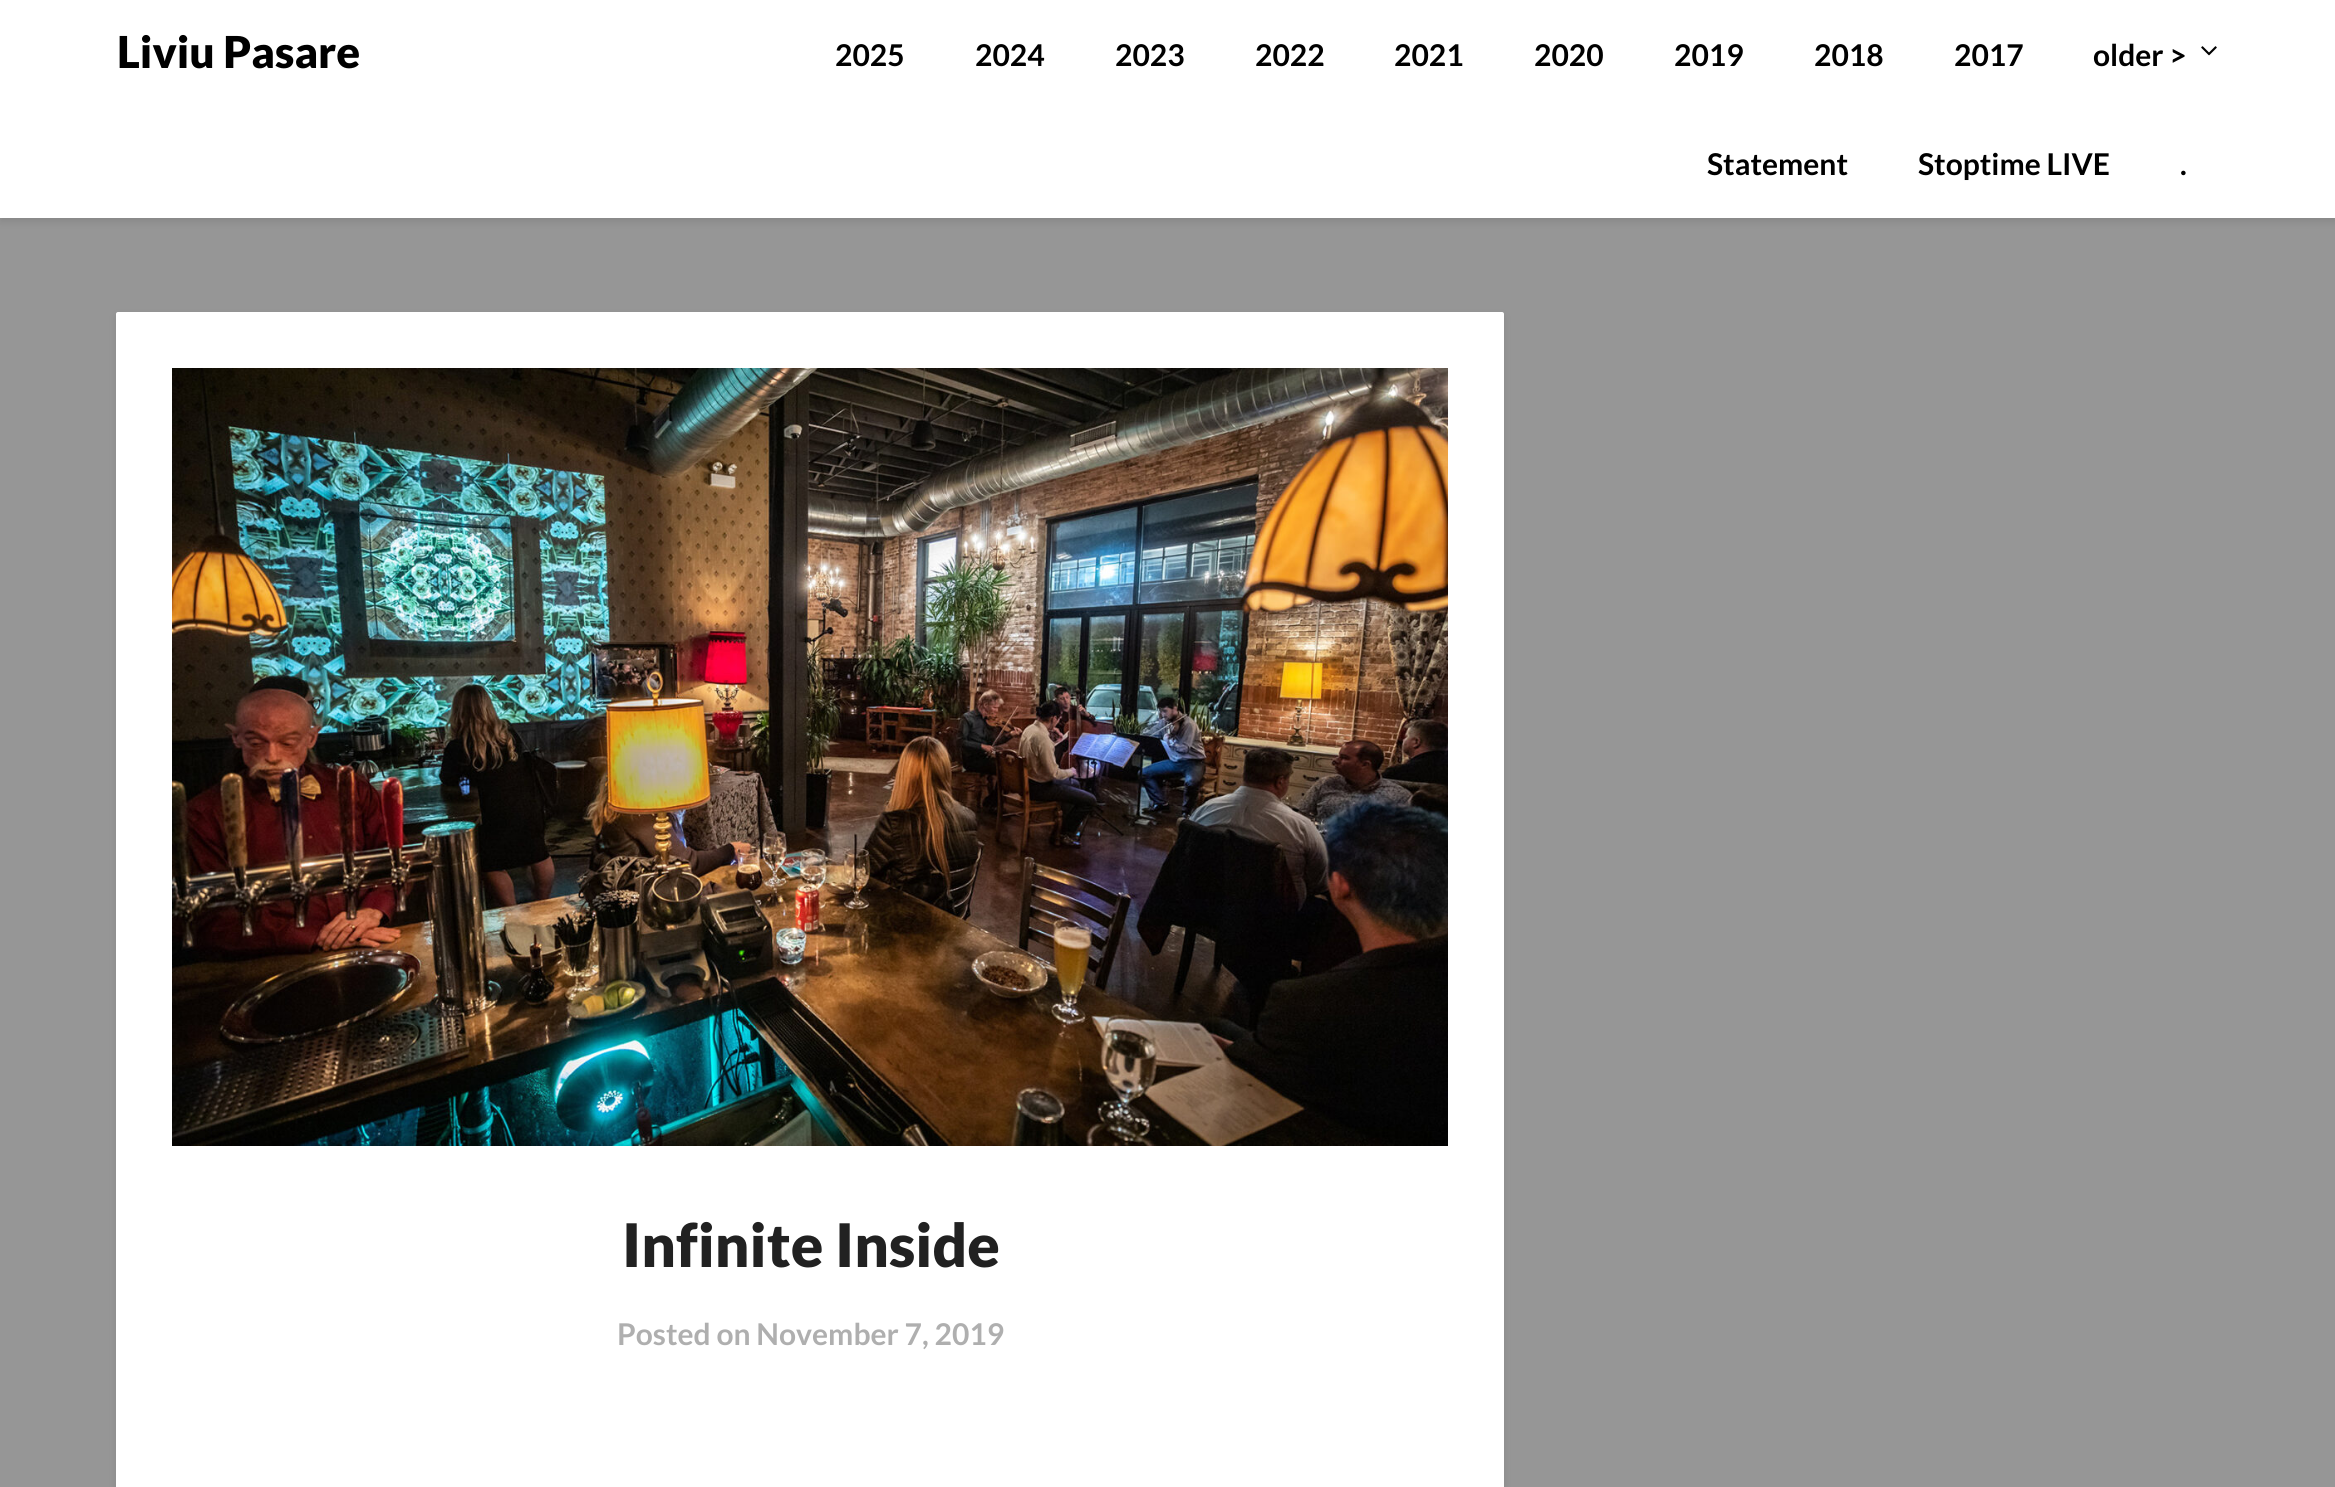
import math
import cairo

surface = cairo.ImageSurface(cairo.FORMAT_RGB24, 2335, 1487)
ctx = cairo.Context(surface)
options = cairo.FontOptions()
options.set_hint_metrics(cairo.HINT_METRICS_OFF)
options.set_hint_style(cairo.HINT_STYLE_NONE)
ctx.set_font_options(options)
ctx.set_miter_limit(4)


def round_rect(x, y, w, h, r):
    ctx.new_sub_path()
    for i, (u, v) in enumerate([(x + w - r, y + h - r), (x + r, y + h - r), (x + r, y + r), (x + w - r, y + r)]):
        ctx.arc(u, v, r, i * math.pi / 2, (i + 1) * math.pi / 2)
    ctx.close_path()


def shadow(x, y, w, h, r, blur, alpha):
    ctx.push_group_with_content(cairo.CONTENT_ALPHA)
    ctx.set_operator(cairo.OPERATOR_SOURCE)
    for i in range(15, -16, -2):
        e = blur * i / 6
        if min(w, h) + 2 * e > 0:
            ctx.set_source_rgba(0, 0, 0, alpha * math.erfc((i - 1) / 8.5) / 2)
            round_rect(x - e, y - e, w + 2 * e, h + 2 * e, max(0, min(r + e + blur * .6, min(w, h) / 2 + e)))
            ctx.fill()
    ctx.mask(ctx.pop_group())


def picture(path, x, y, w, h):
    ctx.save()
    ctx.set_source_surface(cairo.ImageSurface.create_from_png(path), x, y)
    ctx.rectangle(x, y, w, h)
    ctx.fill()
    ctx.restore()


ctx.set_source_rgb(0.588, 0.588, 0.588)
ctx.paint()
ctx.set_source_rgb(0, 0, 0)
shadow(0, 4, 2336, 218, 0, 4, 0.1)
ctx.set_source_rgb(1, 1, 1)
ctx.rectangle(0, 0, 2335, 218)
ctx.fill()
ctx.select_font_face("Lato Black")
ctx.set_font_size(44)
ctx.set_source_rgb(0, 0, 0)
ctx.move_to(117, 68)
ctx.show_text("Liviu Pasare")
ctx.select_font_face("Lato", cairo.FONT_SLANT_NORMAL, cairo.FONT_WEIGHT_BOLD)
ctx.set_font_size(30)
ctx.move_to(835, 66)
ctx.show_text("2025")
ctx.move_to(975, 66)
ctx.show_text("2024")
ctx.move_to(1115, 66)
ctx.show_text("2023")
ctx.move_to(1255, 66)
ctx.show_text("2022")
ctx.move_to(1394, 66)
ctx.show_text("2021")
ctx.move_to(1534, 66)
ctx.show_text("2020")
ctx.move_to(1674, 66)
ctx.show_text("2019")
ctx.move_to(1814, 66)
ctx.show_text("2018")
ctx.move_to(1954, 66)
ctx.show_text("2017")
ctx.move_to(2093, 66)
ctx.show_text("older >")
picture("img1.png", 2201, 46, 16, 10)
ctx.move_to(1707, 175)
ctx.show_text("Statement")
ctx.move_to(1918, 175)
ctx.show_text("Stoptime LIVE")
ctx.move_to(2180, 175)
ctx.show_text(".")
ctx.set_source_rgb(0, 0, 0)
shadow(116, 316, 1388, 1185, 2, 4, 0.1)
ctx.set_source_rgb(1, 1, 1)
round_rect(116, 312, 1388, 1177, 2)
ctx.fill()
picture("img2.png", 172, 368, 1276, 778)
ctx.select_font_face("Lato Black")
ctx.set_font_size(60)
ctx.set_source_rgb(0.129, 0.129, 0.129)
ctx.move_to(622, 1267)
ctx.show_text("Infinite Inside")
ctx.select_font_face("Lato", cairo.FONT_SLANT_NORMAL, cairo.FONT_WEIGHT_BOLD)
ctx.set_font_size(30)
ctx.set_source_rgb(0.686, 0.686, 0.686)
ctx.move_to(617, 1345)
ctx.show_text("Posted on November 7, 2019")
surface.write_to_png("page.png")
